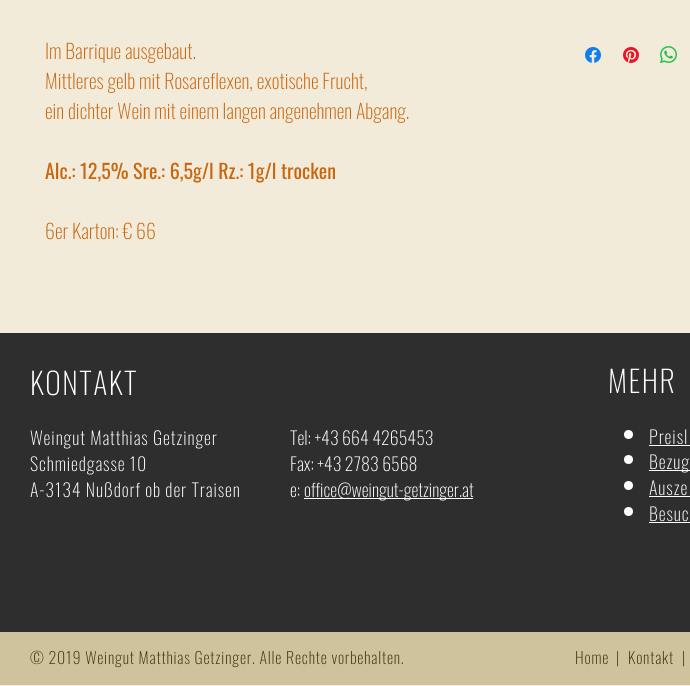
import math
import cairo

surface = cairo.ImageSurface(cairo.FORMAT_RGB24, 690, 686)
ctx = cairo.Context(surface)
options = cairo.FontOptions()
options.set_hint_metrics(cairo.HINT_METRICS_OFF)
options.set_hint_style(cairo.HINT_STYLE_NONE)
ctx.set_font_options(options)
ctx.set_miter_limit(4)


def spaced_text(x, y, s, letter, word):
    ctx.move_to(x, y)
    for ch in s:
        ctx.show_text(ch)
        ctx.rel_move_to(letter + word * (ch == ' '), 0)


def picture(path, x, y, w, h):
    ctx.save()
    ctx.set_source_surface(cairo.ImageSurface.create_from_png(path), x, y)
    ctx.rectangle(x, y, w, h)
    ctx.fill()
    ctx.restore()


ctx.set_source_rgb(0.949, 0.918, 0.855)
ctx.paint()
ctx.select_font_face("Oswald ExtraLight")
ctx.set_font_size(20)
ctx.set_source_rgb(0.788, 0.404, 0.063)
ctx.move_to(45, 59)
ctx.show_text("Im Barrique ausgebaut.")
ctx.move_to(45, 89)
ctx.show_text("Mittleres gelb mit Rosareflexen, exotische Frucht,")
ctx.move_to(45, 119)
ctx.show_text("ein dichter Wein mit einem langen angenehmen Abgang.")
ctx.select_font_face("Oswald")
ctx.move_to(45, 179)
ctx.show_text("Alc.: 12,5% Sre.: 6,5g/l Rz.: 1g/l trocken")
ctx.select_font_face("Oswald ExtraLight")
ctx.move_to(45, 239)
ctx.show_text("6er Karton: € 66")
picture("img1.png", 585, 47, 16, 16)
picture("img2.png", 623, 47, 16, 16)
picture("img3.png", 660, 46, 17, 17)
ctx.set_source_rgb(0.184, 0.18, 0.18)
ctx.rectangle(0, 333, 690, 299)
ctx.fill()
ctx.set_font_size(30)
ctx.set_source_rgb(1, 1, 1)
spaced_text(30, 395, "KONTAKT", 1.5, 0)
ctx.set_font_size(18)
spaced_text(30, 445, "Weingut Matthias Getzinger", 0.9, 0)
spaced_text(30, 471, "Schmiedgasse 10", 0.9, 0)
spaced_text(30, 497, "A-3134 Nußdorf ob der Traisen", 0.9, 0)
ctx.move_to(290, 445)
ctx.show_text("Tel: +43 664 4265453")
ctx.move_to(290, 471)
ctx.show_text("Fax: +43 2783 6568")
ctx.move_to(290, 497)
ctx.show_text("e:")
ctx.rectangle(304, 498, 169, 1)
ctx.fill()
ctx.move_to(304, 497)
ctx.show_text("office@weingut-getzinger.at")
ctx.set_font_size(30)
spaced_text(608, 393, "MEHR", 1.5, 0)
ctx.new_path()
ctx.arc(628.5, 434.5, 4.5, 0, 2 * math.pi)
ctx.fill()
ctx.set_font_size(18)
spaced_text(649, 444, "Preisl", 0.9, 0)
ctx.rectangle(649, 445, 41, 1)
ctx.fill()
ctx.arc(628.5, 459.5, 4.5, 0, 2 * math.pi)
ctx.fill()
ctx.rectangle(649, 470, 41, 1)
ctx.fill()
spaced_text(649, 469, "Bezug", 0.9, 0)
ctx.new_path()
ctx.arc(628.5, 485.5, 4.5, 0, 2 * math.pi)
ctx.fill()
spaced_text(649, 495, "Ausze", 0.9, 0)
ctx.rectangle(649, 496, 41, 1)
ctx.fill()
ctx.arc(628.5, 511.5, 4.5, 0, 2 * math.pi)
ctx.fill()
spaced_text(649, 521, "Besuc", 0.9, 0)
ctx.rectangle(649, 522, 41, 1)
ctx.fill()
ctx.set_source_rgb(0.808, 0.765, 0.612)
ctx.rectangle(0, 632, 690, 53)
ctx.fill()
ctx.set_font_size(16)
ctx.set_source_rgb(0.239, 0.204, 0.024)
spaced_text(30, 664, "© 2019 Weingut Matthias Getzinger. Alle Rechte vorbehalten.", 0.8, 0)
spaced_text(575, 664, "Home", 0.8, 0)
spaced_text(616, 664, "|", 0.8, 0)
spaced_text(628, 664, "Kontakt", 0.8, 0)
spaced_text(682, 664, "|", 0.8, 0)
surface.write_to_png("page.png")
